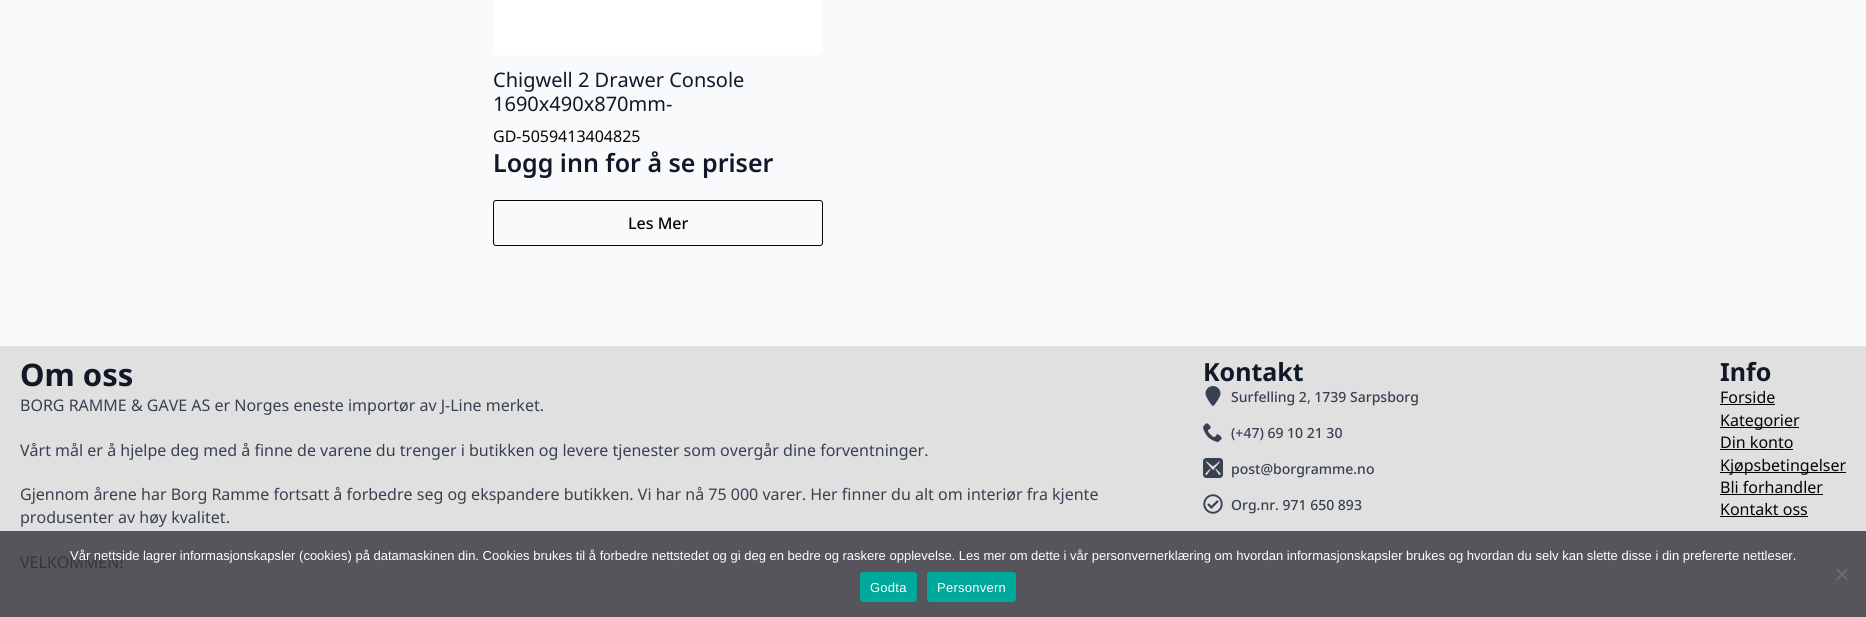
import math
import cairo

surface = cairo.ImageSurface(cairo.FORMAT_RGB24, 1866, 617)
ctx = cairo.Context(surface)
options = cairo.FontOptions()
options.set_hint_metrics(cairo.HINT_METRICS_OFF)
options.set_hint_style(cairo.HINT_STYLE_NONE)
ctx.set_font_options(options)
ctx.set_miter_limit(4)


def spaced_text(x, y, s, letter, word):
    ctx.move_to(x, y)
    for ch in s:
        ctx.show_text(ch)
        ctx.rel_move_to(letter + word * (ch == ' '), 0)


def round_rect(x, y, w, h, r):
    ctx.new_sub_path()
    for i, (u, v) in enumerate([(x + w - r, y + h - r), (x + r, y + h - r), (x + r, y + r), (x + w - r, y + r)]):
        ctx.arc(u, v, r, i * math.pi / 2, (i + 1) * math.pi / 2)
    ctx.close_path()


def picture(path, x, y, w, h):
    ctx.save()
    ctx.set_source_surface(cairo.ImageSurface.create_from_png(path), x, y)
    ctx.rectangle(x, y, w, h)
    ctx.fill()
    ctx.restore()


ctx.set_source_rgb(0.976, 0.98, 0.984)
ctx.paint()
ctx.set_source_rgb(1, 1, 1)
round_rect(493, -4, 330, 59, 4)
ctx.fill()
ctx.select_font_face("Noto Sans")
ctx.set_font_size(20)
ctx.set_source_rgb(0.067, 0.094, 0.153)
ctx.move_to(493, 87)
ctx.show_text("Chigwell 2 Drawer Console")
ctx.move_to(493, 111)
ctx.show_text("1690x490x870mm-")
ctx.set_font_size(16)
ctx.set_source_rgb(0.024, 0.024, 0.024)
ctx.move_to(493, 142)
ctx.show_text("GD-5059413404825")
ctx.select_font_face("Noto Sans SemiBold")
ctx.set_font_size(25)
ctx.set_source_rgb(0.067, 0.094, 0.153)
ctx.move_to(493, 172)
ctx.show_text("Logg inn for å se priser")
round_rect(493.5, 200.5, 329, 45, 2.5)
ctx.set_source_rgb(0.024, 0.024, 0.024)
ctx.set_line_width(1)
ctx.stroke()
ctx.select_font_face("Noto Sans Medium")
ctx.set_font_size(16)
ctx.move_to(628, 229)
ctx.show_text("Les Mer")
ctx.set_source_rgb(0.878, 0.878, 0.878)
ctx.rectangle(0, 346, 1866, 185)
ctx.fill()
ctx.set_source_rgb(0.333, 0.333, 0.357)
ctx.rectangle(0, 531, 1866, 86)
ctx.fill()
ctx.select_font_face("Noto Sans", cairo.FONT_SLANT_NORMAL, cairo.FONT_WEIGHT_BOLD)
ctx.set_font_size(31)
ctx.set_source_rgb(0.067, 0.094, 0.153)
ctx.move_to(20, 386)
ctx.show_text("Om oss")
ctx.select_font_face("Noto Sans")
ctx.set_font_size(16)
ctx.set_source_rgb(0.216, 0.255, 0.318)
ctx.move_to(20, 411)
ctx.show_text("BORG RAMME & GAVE AS er Norges eneste importør av J-Line merket.")
ctx.move_to(20, 456)
ctx.show_text("Vårt mål er å hjelpe deg med å finne de varene du trenger i butikken og levere tjenester som overgår dine forventninger.")
ctx.move_to(20, 500)
ctx.show_text("Gjennom årene har Borg Ramme fortsatt å forbedre seg og ekspandere butikken. Vi har nå 75 000 varer. Her finner du alt om interiør fra kjente")
ctx.move_to(20, 523)
ctx.show_text("produsenter av høy kvalitet.")
ctx.set_source_rgb(0.2, 0.208, 0.247)
ctx.move_to(20, 568)
ctx.show_text("VELKOMMEN!")
ctx.select_font_face("Noto Sans", cairo.FONT_SLANT_NORMAL, cairo.FONT_WEIGHT_BOLD)
ctx.set_font_size(25)
ctx.set_source_rgb(0.067, 0.094, 0.153)
ctx.move_to(1203, 381)
ctx.show_text("Kontakt")
picture("img1.png", 1205, 386, 16, 20)
ctx.select_font_face("Noto Sans Medium")
ctx.set_font_size(14)
ctx.set_source_rgb(0.216, 0.255, 0.318)
ctx.move_to(1231, 402)
ctx.show_text("Surfelling 2, 1739 Sarpsborg")
picture("img2.png", 1203, 423, 19, 19)
ctx.move_to(1231, 438)
ctx.show_text("(+47) 69 10 21 30")
picture("img3.png", 1203, 458, 20, 20)
ctx.move_to(1231, 474)
ctx.show_text("post@borgramme.no")
picture("img4.png", 1203, 494, 20, 20)
ctx.move_to(1231, 510)
ctx.show_text("Org.nr. 971 650 893")
ctx.select_font_face("Noto Sans", cairo.FONT_SLANT_NORMAL, cairo.FONT_WEIGHT_BOLD)
ctx.set_font_size(25)
ctx.set_source_rgb(0.067, 0.094, 0.153)
ctx.move_to(1720, 381)
ctx.show_text("Info")
ctx.select_font_face("Noto Sans")
ctx.set_font_size(16)
ctx.set_source_rgb(0.024, 0.024, 0.024)
ctx.move_to(1720, 403)
ctx.show_text("Forside")
ctx.rectangle(1720, 404, 55, 1)
ctx.fill()
ctx.rectangle(1720, 427, 79, 1)
ctx.fill()
ctx.move_to(1720, 426)
ctx.show_text("Kategorier")
ctx.move_to(1720, 448)
ctx.show_text("Din konto")
ctx.rectangle(1720, 449, 73, 1)
ctx.fill()
ctx.rectangle(1720, 472, 126, 1)
ctx.fill()
ctx.move_to(1720, 471)
ctx.show_text("Kjøpsbetingelser")
ctx.move_to(1720, 493)
ctx.show_text("Bli forhandler")
ctx.rectangle(1720, 494, 103, 1)
ctx.fill()
ctx.move_to(1720, 515)
ctx.show_text("Kontakt oss")
ctx.rectangle(1720, 516, 88, 1)
ctx.fill()
ctx.select_font_face("Liberation Sans")
ctx.set_font_size(13)
ctx.set_source_rgb(1, 1, 1)
ctx.move_to(70, 560)
ctx.show_text("Vår nettside lagrer informasjonskapsler (cookies) på datamaskinen din. Cookies brukes til å forbedre nettstedet og gi deg en bedre og raskere opplevelse. Les mer om dette i vår personvernerklæring om hvordan informasjonskapsler brukes og hvordan du selv kan slette disse i din prefererte nettleser.")
ctx.set_source_rgb(0.416, 0.416, 0.431)
ctx.new_path()
ctx.move_to(1846.5, 568.5)
ctx.line_to(1848, 570)
ctx.line_to(1837.5, 580.5)
ctx.line_to(1836, 579)
ctx.close_path()
ctx.fill()
ctx.new_path()
ctx.move_to(1836, 570)
ctx.line_to(1837.5, 568.5)
ctx.line_to(1848, 579)
ctx.line_to(1846.5, 580.5)
ctx.close_path()
ctx.fill()
ctx.set_source_rgb(0, 0.663, 0.616)
round_rect(860, 572, 57, 30, 3)
ctx.fill()
ctx.set_source_rgb(1, 1, 1)
spaced_text(870, 592, "Godta", 0.25, 0)
ctx.set_source_rgb(0, 0.663, 0.616)
round_rect(927, 572, 89, 30, 3)
ctx.fill()
ctx.set_source_rgb(1, 1, 1)
spaced_text(937, 592, "Personvern", 0.25, 0)
surface.write_to_png("page.png")
